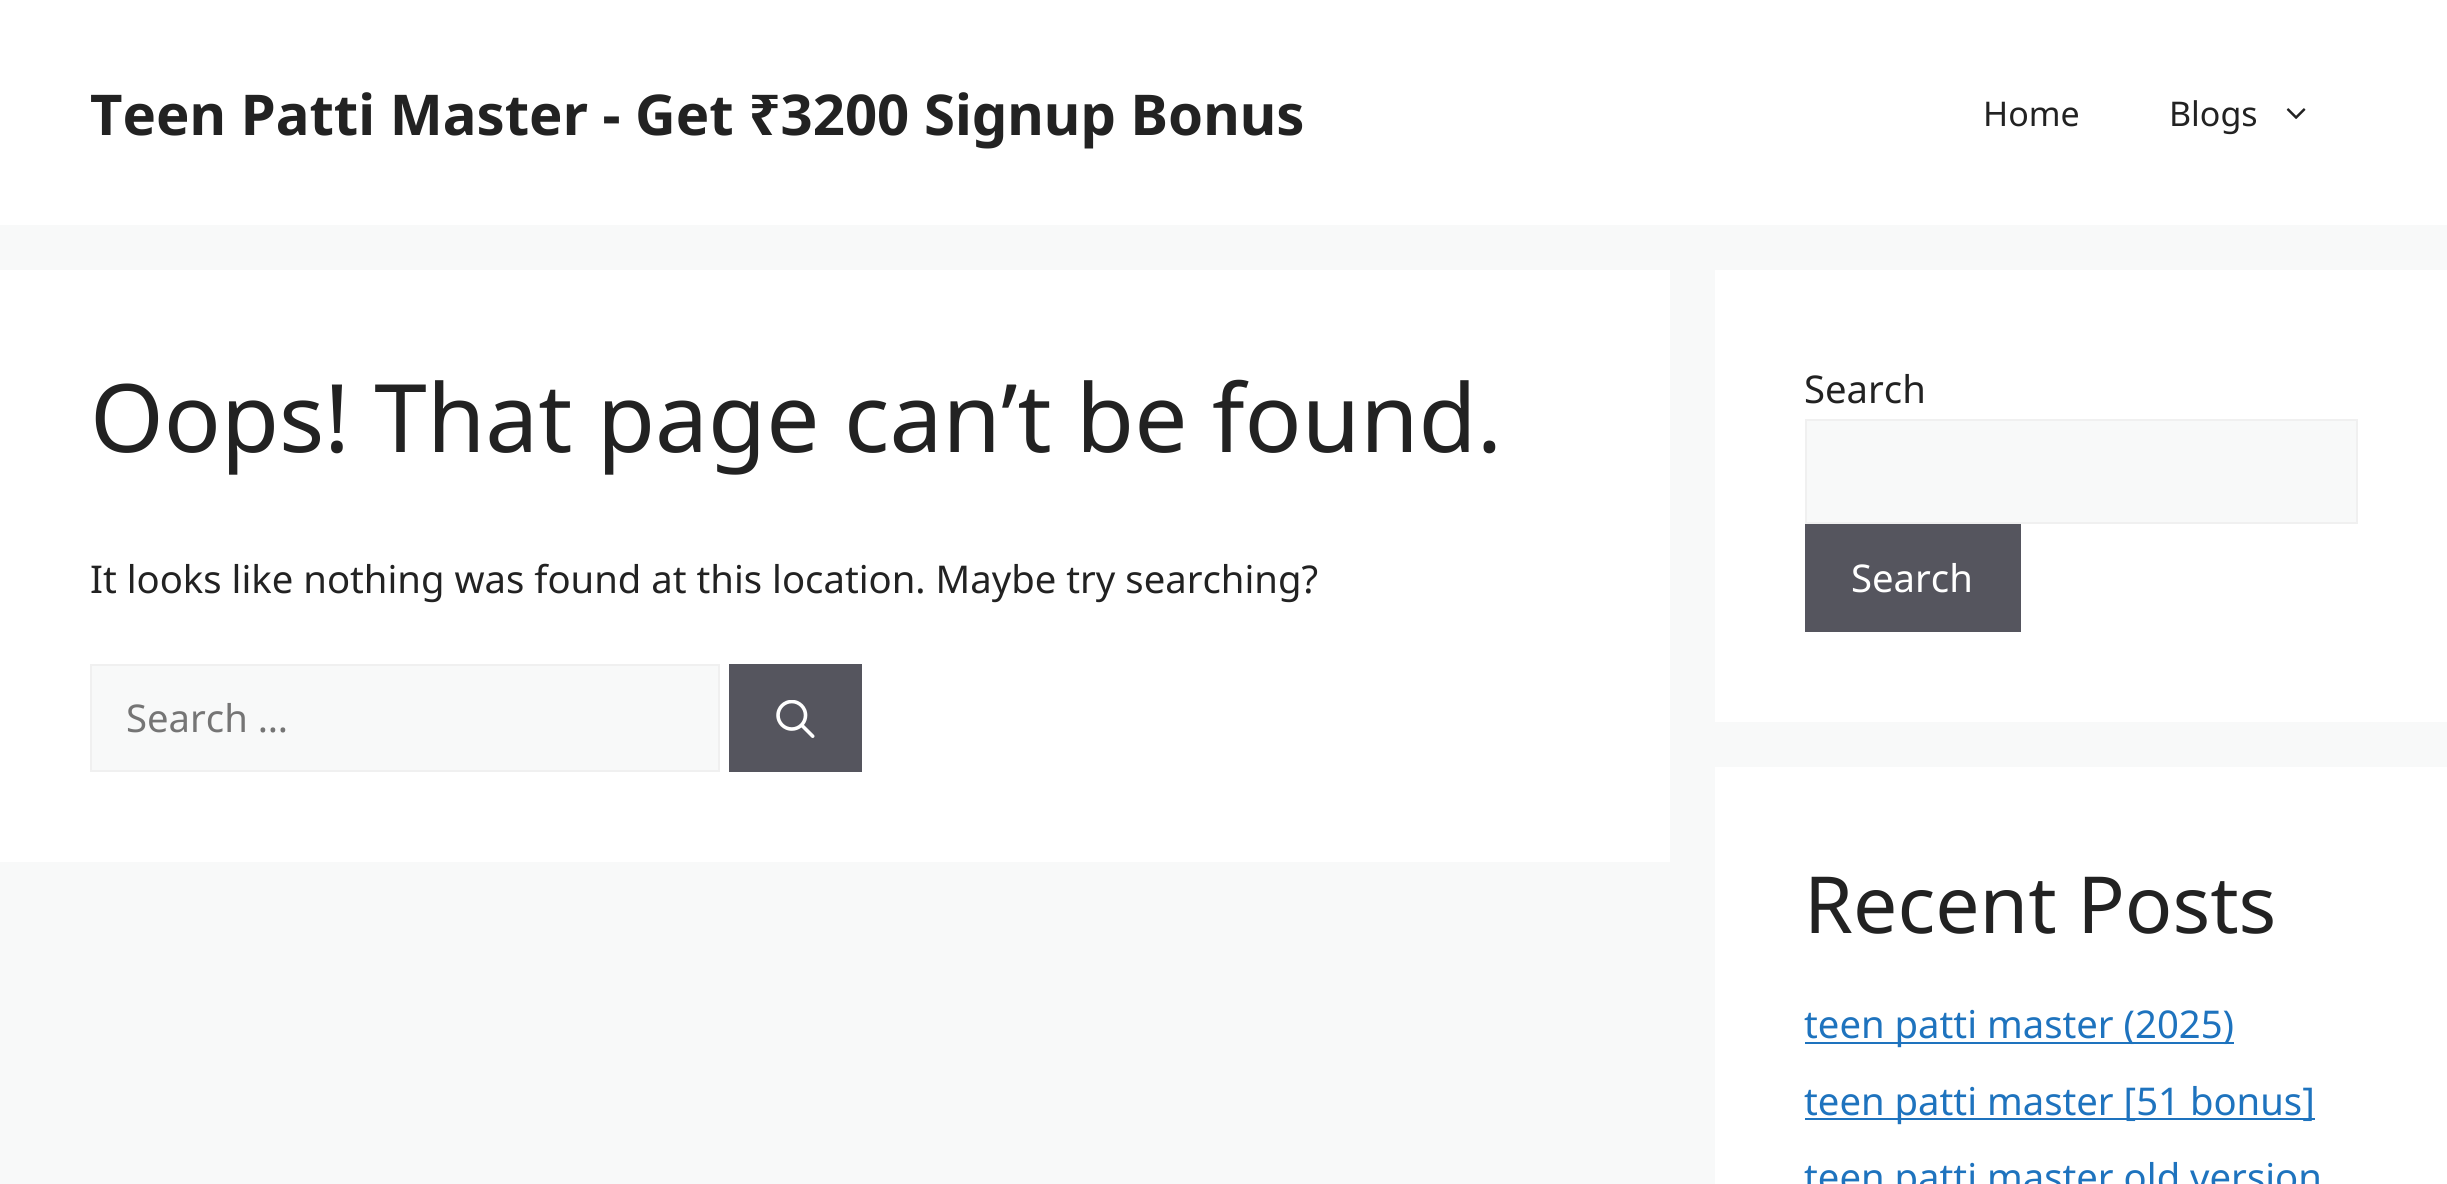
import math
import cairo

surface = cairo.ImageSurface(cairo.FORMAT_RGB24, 2447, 1184)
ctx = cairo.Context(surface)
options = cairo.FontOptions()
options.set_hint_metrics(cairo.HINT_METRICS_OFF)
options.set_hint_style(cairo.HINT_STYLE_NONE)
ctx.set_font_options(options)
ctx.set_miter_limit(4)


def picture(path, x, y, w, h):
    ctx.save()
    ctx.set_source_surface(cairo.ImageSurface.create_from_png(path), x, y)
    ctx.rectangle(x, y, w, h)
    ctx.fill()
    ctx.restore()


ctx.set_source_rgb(0.969, 0.973, 0.976)
ctx.paint()
ctx.set_source_rgb(1, 1, 1)
ctx.rectangle(0, 0, 2447, 225)
ctx.fill()
ctx.select_font_face("Noto Sans", cairo.FONT_SLANT_NORMAL, cairo.FONT_WEIGHT_BOLD)
ctx.set_font_size(56.25)
ctx.set_source_rgb(0.133, 0.133, 0.133)
ctx.move_to(90, 135)
ctx.show_text("Teen Patti Master - Get ₹3200 Signup Bonus")
ctx.select_font_face("Noto Sans")
ctx.set_font_size(34)
ctx.move_to(1983, 126)
ctx.show_text("Home")
ctx.move_to(2169, 126)
ctx.show_text("Blogs")
picture("img1.png", 2286, 108, 20, 11)
ctx.set_source_rgb(1, 1, 1)
ctx.rectangle(0, 270, 1670, 592)
ctx.fill()
ctx.set_font_size(94.5)
ctx.set_source_rgb(0.133, 0.133, 0.133)
ctx.move_to(90, 452)
ctx.show_text("Oops! That page can’t be found.")
ctx.set_font_size(38.25)
ctx.move_to(90, 593)
ctx.show_text("It looks like nothing was found at this location. Maybe try searching?")
ctx.set_source_rgb(0.969, 0.973, 0.976)
ctx.rectangle(91, 665, 628, 106)
ctx.fill_preserve()
ctx.set_source_rgb(0.941, 0.941, 0.941)
ctx.stroke()
ctx.set_source_rgb(0.459, 0.459, 0.459)
ctx.move_to(126, 732)
ctx.show_text("Search …")
ctx.set_source_rgb(0.333, 0.333, 0.369)
ctx.rectangle(729, 664, 133, 108)
ctx.fill()
picture("img2.png", 776, 700, 39, 38)
ctx.set_source_rgb(1, 1, 1)
ctx.rectangle(1715, 270, 732, 452)
ctx.fill()
ctx.set_source_rgb(0.133, 0.133, 0.133)
ctx.move_to(1804, 403)
ctx.show_text("Search")
ctx.set_source_rgb(0.969, 0.973, 0.976)
ctx.rectangle(1806, 420, 551, 103)
ctx.fill_preserve()
ctx.set_source_rgb(0.941, 0.941, 0.941)
ctx.stroke()
ctx.set_source_rgb(0.333, 0.333, 0.369)
ctx.rectangle(1805, 524, 216, 108)
ctx.fill()
ctx.set_source_rgb(1, 1, 1)
ctx.move_to(1851, 592)
ctx.show_text("Search")
ctx.rectangle(1715, 767, 732, 417)
ctx.fill()
ctx.set_font_size(78.75)
ctx.set_source_rgb(0.133, 0.133, 0.133)
ctx.move_to(1804, 933)
ctx.show_text("Recent Posts")
ctx.set_source_rgb(0.118, 0.451, 0.745)
ctx.rectangle(1805, 1042, 429, 2)
ctx.fill()
ctx.set_font_size(38.25)
ctx.move_to(1804, 1038)
ctx.show_text("teen patti master (2025)")
ctx.rectangle(1805, 1118, 510, 2)
ctx.fill()
ctx.move_to(1804, 1115)
ctx.show_text("teen patti master [51 bonus]")
ctx.move_to(1804, 1191)
ctx.show_text("teen patti master old version")
surface.write_to_png("page.png")
